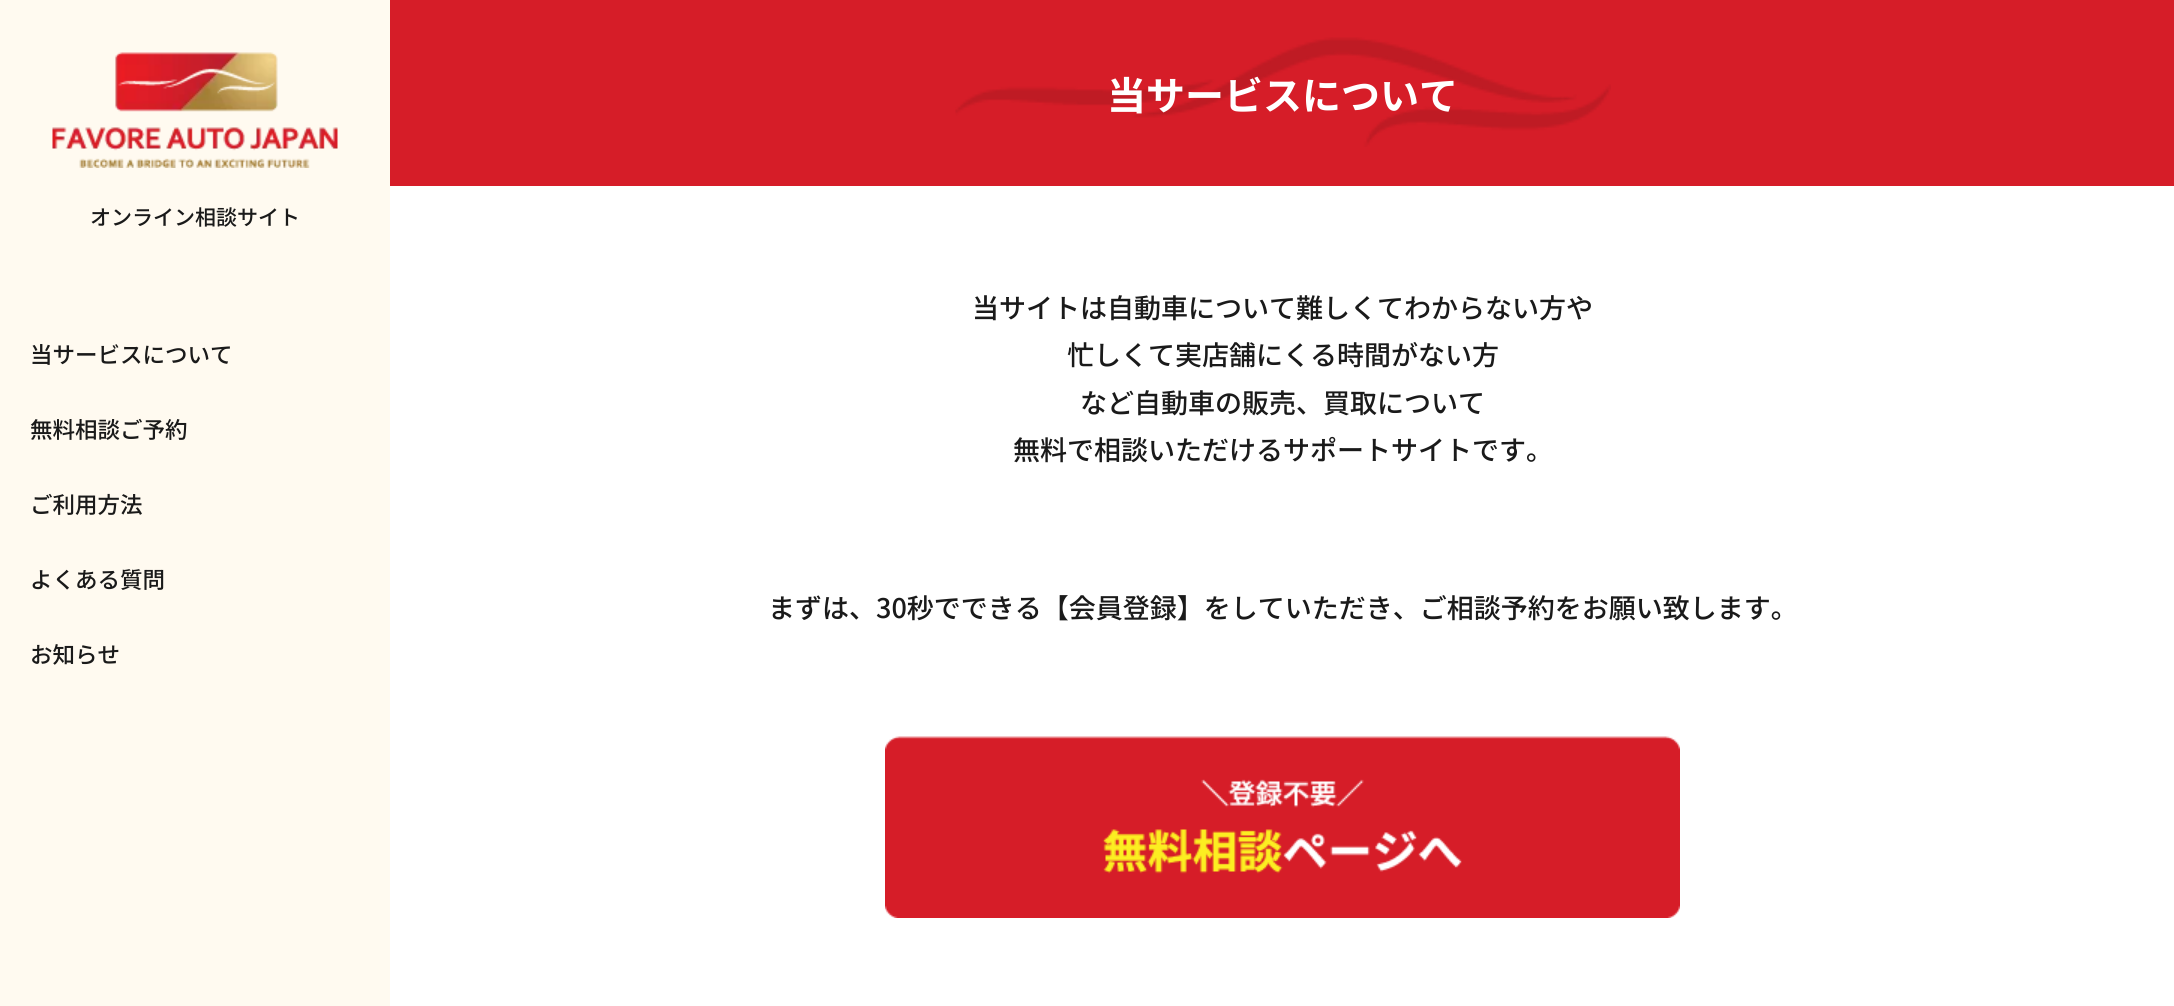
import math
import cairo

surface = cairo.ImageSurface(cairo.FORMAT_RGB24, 2174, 1006)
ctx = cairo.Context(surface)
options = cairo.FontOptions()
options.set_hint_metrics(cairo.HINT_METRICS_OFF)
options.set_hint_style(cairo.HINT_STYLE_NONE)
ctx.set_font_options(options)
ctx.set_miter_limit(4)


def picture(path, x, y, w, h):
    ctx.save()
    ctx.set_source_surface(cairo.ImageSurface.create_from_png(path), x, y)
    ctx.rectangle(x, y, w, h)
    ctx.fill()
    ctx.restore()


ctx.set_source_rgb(1, 1, 1)
ctx.paint()
ctx.set_source_rgb(1, 0.98, 0.941)
ctx.rectangle(0, 0, 390, 1006)
ctx.fill()
picture("img1.png", 52, 52, 286, 116)
ctx.select_font_face("Noto Sans JP Medium")
ctx.set_font_size(21)
ctx.set_source_rgb(0.102, 0.102, 0.102)
ctx.move_to(90, 225)
ctx.show_text("オンライン相談サイト")
ctx.set_font_size(22.5)
ctx.move_to(30, 363)
ctx.show_text("当サービスについて")
ctx.move_to(30, 438)
ctx.show_text("無料相談ご予約")
ctx.move_to(30, 513)
ctx.show_text("ご利用方法")
ctx.move_to(30, 588)
ctx.show_text("よくある質問")
ctx.move_to(30, 663)
ctx.show_text("お知らせ")
ctx.set_source_rgb(0.839, 0.114, 0.157)
ctx.rectangle(390, 0, 1784, 186)
ctx.fill()
picture("img2.png", 955, 37, 656, 110)
ctx.select_font_face("Noto Sans JP", cairo.FONT_SLANT_NORMAL, cairo.FONT_WEIGHT_BOLD)
ctx.set_font_size(39)
ctx.set_source_rgb(1, 1, 1)
ctx.move_to(1107, 110)
ctx.show_text("当サービスについて")
ctx.select_font_face("Noto Sans JP Medium")
ctx.set_font_size(27)
ctx.set_source_rgb(0.102, 0.102, 0.102)
ctx.move_to(972, 318)
ctx.show_text("当サイトは自動車について難しくてわからない方や")
ctx.move_to(1067, 365)
ctx.show_text("忙しくて実店舗にくる時間がない方")
ctx.move_to(1080, 413)
ctx.show_text("など自動車の販売、買取について")
ctx.move_to(1013, 460)
ctx.show_text("無料で相談いただけるサポートサイトです。")
ctx.move_to(768, 618)
ctx.show_text("まずは、30秒でできる【会員登録】をしていただき、ご相談予約をお願い致します。")
picture("img3.png", 885, 736, 795, 182)
surface.write_to_png("page.png")
